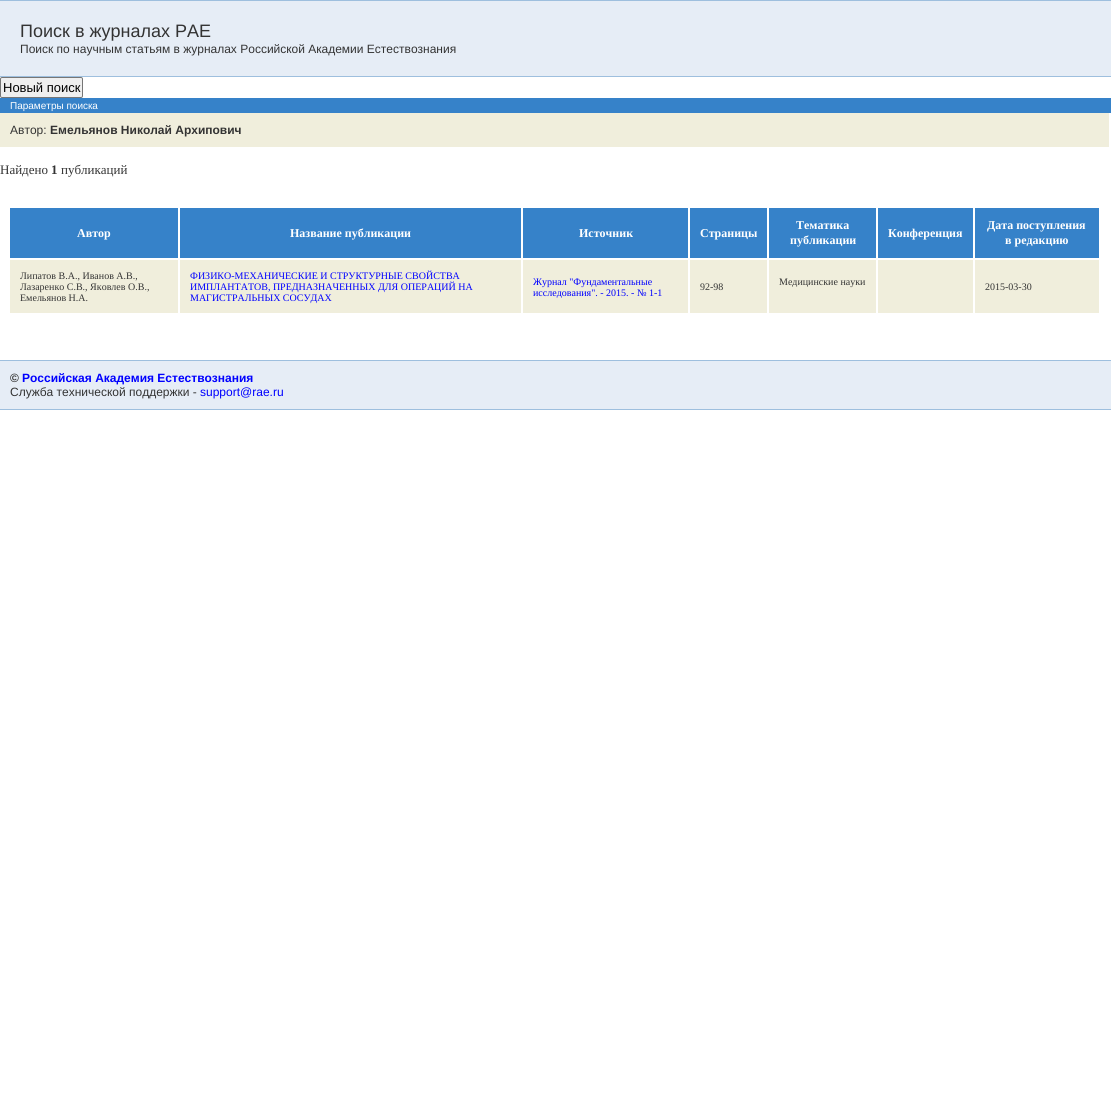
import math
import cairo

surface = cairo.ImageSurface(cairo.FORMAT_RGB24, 1111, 1104)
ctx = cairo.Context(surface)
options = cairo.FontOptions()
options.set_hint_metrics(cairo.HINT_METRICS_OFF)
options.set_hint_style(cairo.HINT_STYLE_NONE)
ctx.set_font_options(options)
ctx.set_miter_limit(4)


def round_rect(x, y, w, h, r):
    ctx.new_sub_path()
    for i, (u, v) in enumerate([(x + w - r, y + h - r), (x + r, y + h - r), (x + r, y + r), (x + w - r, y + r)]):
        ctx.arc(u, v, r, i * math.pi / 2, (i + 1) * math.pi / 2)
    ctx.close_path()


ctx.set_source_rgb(1, 1, 1)
ctx.paint()
ctx.set_source_rgb(0.902, 0.929, 0.961)
ctx.rectangle(0, 1, 1111, 75)
ctx.fill()
ctx.set_source_rgb(0.62, 0.749, 0.871)
ctx.rectangle(0, 0, 1111, 1)
ctx.fill()
ctx.rectangle(0, 76, 1111, 1)
ctx.fill()
ctx.select_font_face("Liberation Sans")
ctx.set_font_size(18)
ctx.set_source_rgb(0.2, 0.2, 0.2)
ctx.move_to(20, 37)
ctx.show_text("Поиск в журналах РАЕ")
ctx.set_font_size(12)
ctx.move_to(20, 53)
ctx.show_text("Поиск по научным статьям в журналах Российской Академии Естествознания")
ctx.set_source_rgb(0.937, 0.937, 0.937)
round_rect(0.5, 77.5, 82, 20, 1.5)
ctx.fill_preserve()
ctx.set_source_rgb(0.463, 0.463, 0.463)
ctx.set_line_width(1)
ctx.stroke()
ctx.set_font_size(13)
ctx.set_source_rgb(0, 0, 0)
ctx.move_to(3, 92)
ctx.show_text("Новый поиск")
ctx.set_source_rgb(0.212, 0.51, 0.788)
ctx.rectangle(0, 98, 1111, 15)
ctx.fill()
ctx.set_font_size(10)
ctx.set_source_rgb(1, 1, 1)
ctx.move_to(10, 109)
ctx.show_text("Параметры поиска")
ctx.set_source_rgb(0.941, 0.933, 0.863)
ctx.rectangle(0, 113, 1109, 34)
ctx.fill()
ctx.set_font_size(12)
ctx.set_source_rgb(0.2, 0.2, 0.2)
ctx.move_to(10, 134)
ctx.show_text("Автор:")
ctx.select_font_face("Liberation Sans", cairo.FONT_SLANT_NORMAL, cairo.FONT_WEIGHT_BOLD)
ctx.move_to(50, 134)
ctx.show_text("Емельянов Николай Архипович")
ctx.select_font_face("Liberation Serif")
ctx.set_font_size(13)
ctx.move_to(0, 174)
ctx.show_text("Найдено")
ctx.select_font_face("Liberation Serif", cairo.FONT_SLANT_NORMAL, cairo.FONT_WEIGHT_BOLD)
ctx.move_to(51, 174)
ctx.show_text("1")
ctx.select_font_face("Liberation Serif")
ctx.move_to(61, 174)
ctx.show_text("публикаций")
ctx.set_source_rgb(0.212, 0.51, 0.788)
ctx.rectangle(10, 208, 168, 50)
ctx.fill()
ctx.select_font_face("Liberation Serif", cairo.FONT_SLANT_NORMAL, cairo.FONT_WEIGHT_BOLD)
ctx.set_font_size(12)
ctx.set_source_rgb(1, 1, 1)
ctx.move_to(77, 237)
ctx.show_text("Автор")
ctx.set_source_rgb(0.212, 0.51, 0.788)
ctx.rectangle(180, 208, 341, 50)
ctx.fill()
ctx.set_source_rgb(1, 1, 1)
ctx.move_to(290, 237)
ctx.show_text("Название публикации")
ctx.set_source_rgb(0.212, 0.51, 0.788)
ctx.rectangle(523, 208, 165, 50)
ctx.fill()
ctx.set_source_rgb(1, 1, 1)
ctx.move_to(579, 237)
ctx.show_text("Источник")
ctx.set_source_rgb(0.212, 0.51, 0.788)
ctx.rectangle(690, 208, 77, 50)
ctx.fill()
ctx.set_source_rgb(1, 1, 1)
ctx.move_to(700, 237)
ctx.show_text("Страницы")
ctx.set_source_rgb(0.212, 0.51, 0.788)
ctx.rectangle(769, 208, 107, 50)
ctx.fill()
ctx.set_source_rgb(1, 1, 1)
ctx.move_to(796, 229)
ctx.show_text("Тематика")
ctx.move_to(790, 244)
ctx.show_text("публикации")
ctx.set_source_rgb(0.212, 0.51, 0.788)
ctx.rectangle(878, 208, 95, 50)
ctx.fill()
ctx.set_source_rgb(1, 1, 1)
ctx.move_to(888, 237)
ctx.show_text("Конференция")
ctx.set_source_rgb(0.212, 0.51, 0.788)
ctx.rectangle(975, 208, 124, 50)
ctx.fill()
ctx.set_source_rgb(1, 1, 1)
ctx.move_to(987, 229)
ctx.show_text("Дата поступления")
ctx.move_to(1005, 244)
ctx.show_text("в редакцию")
ctx.set_source_rgb(0.941, 0.933, 0.863)
ctx.rectangle(10, 260, 168, 53)
ctx.fill()
ctx.select_font_face("Liberation Serif")
ctx.set_font_size(10)
ctx.set_source_rgb(0.2, 0.2, 0.2)
ctx.move_to(20, 279)
ctx.show_text("Липатов В.А., Иванов А.В.,")
ctx.move_to(20, 290)
ctx.show_text("Лазаренко С.В., Яковлев О.В.,")
ctx.move_to(20, 301)
ctx.show_text("Емельянов Н.А.")
ctx.set_source_rgb(0.941, 0.933, 0.863)
ctx.rectangle(180, 260, 341, 53)
ctx.fill()
ctx.set_source_rgb(0, 0, 1)
ctx.move_to(190, 279)
ctx.show_text("ФИЗИКО-МЕХАНИЧЕСКИЕ И СТРУКТУРНЫЕ СВОЙСТВА")
ctx.move_to(190, 290)
ctx.show_text("ИМПЛАНТАТОВ, ПРЕДНАЗНАЧЕННЫХ ДЛЯ ОПЕРАЦИЙ НА")
ctx.move_to(190, 301)
ctx.show_text("МАГИСТРАЛЬНЫХ СОСУДАХ")
ctx.set_source_rgb(0.941, 0.933, 0.863)
ctx.rectangle(523, 260, 165, 53)
ctx.fill()
ctx.set_source_rgb(0, 0, 1)
ctx.move_to(533, 285)
ctx.show_text("Журнал \"Фундаментальные")
ctx.move_to(533, 296)
ctx.show_text("исследования\". - 2015. - № 1-1")
ctx.set_source_rgb(0.941, 0.933, 0.863)
ctx.rectangle(690, 260, 77, 53)
ctx.fill()
ctx.set_source_rgb(0.2, 0.2, 0.2)
ctx.move_to(700, 290)
ctx.show_text("92-98")
ctx.set_source_rgb(0.941, 0.933, 0.863)
ctx.rectangle(769, 260, 107, 53)
ctx.fill()
ctx.set_source_rgb(0.2, 0.2, 0.2)
ctx.move_to(779, 285)
ctx.show_text("Медицинские науки")
ctx.set_source_rgb(0.941, 0.933, 0.863)
ctx.rectangle(878, 260, 95, 53)
ctx.fill()
ctx.rectangle(975, 260, 124, 53)
ctx.fill()
ctx.set_source_rgb(0.2, 0.2, 0.2)
ctx.move_to(985, 290)
ctx.show_text("2015-03-30")
ctx.set_source_rgb(0.902, 0.929, 0.961)
ctx.rectangle(0, 361, 1111, 48)
ctx.fill()
ctx.set_source_rgb(0.62, 0.749, 0.871)
ctx.rectangle(0, 360, 1111, 1)
ctx.fill()
ctx.rectangle(0, 409, 1111, 1)
ctx.fill()
ctx.select_font_face("Liberation Sans", cairo.FONT_SLANT_NORMAL, cairo.FONT_WEIGHT_BOLD)
ctx.set_font_size(12)
ctx.set_source_rgb(0.2, 0.2, 0.2)
ctx.move_to(10, 382)
ctx.show_text("©")
ctx.set_source_rgb(0, 0, 1)
ctx.move_to(22, 382)
ctx.show_text("Российская Академия Естествознания")
ctx.select_font_face("Liberation Sans")
ctx.set_source_rgb(0.2, 0.2, 0.2)
ctx.move_to(10, 396)
ctx.show_text("Служба технической поддержки -")
ctx.set_source_rgb(0, 0, 1)
ctx.move_to(200, 396)
ctx.show_text("support@rae.ru")
surface.write_to_png("page.png")
